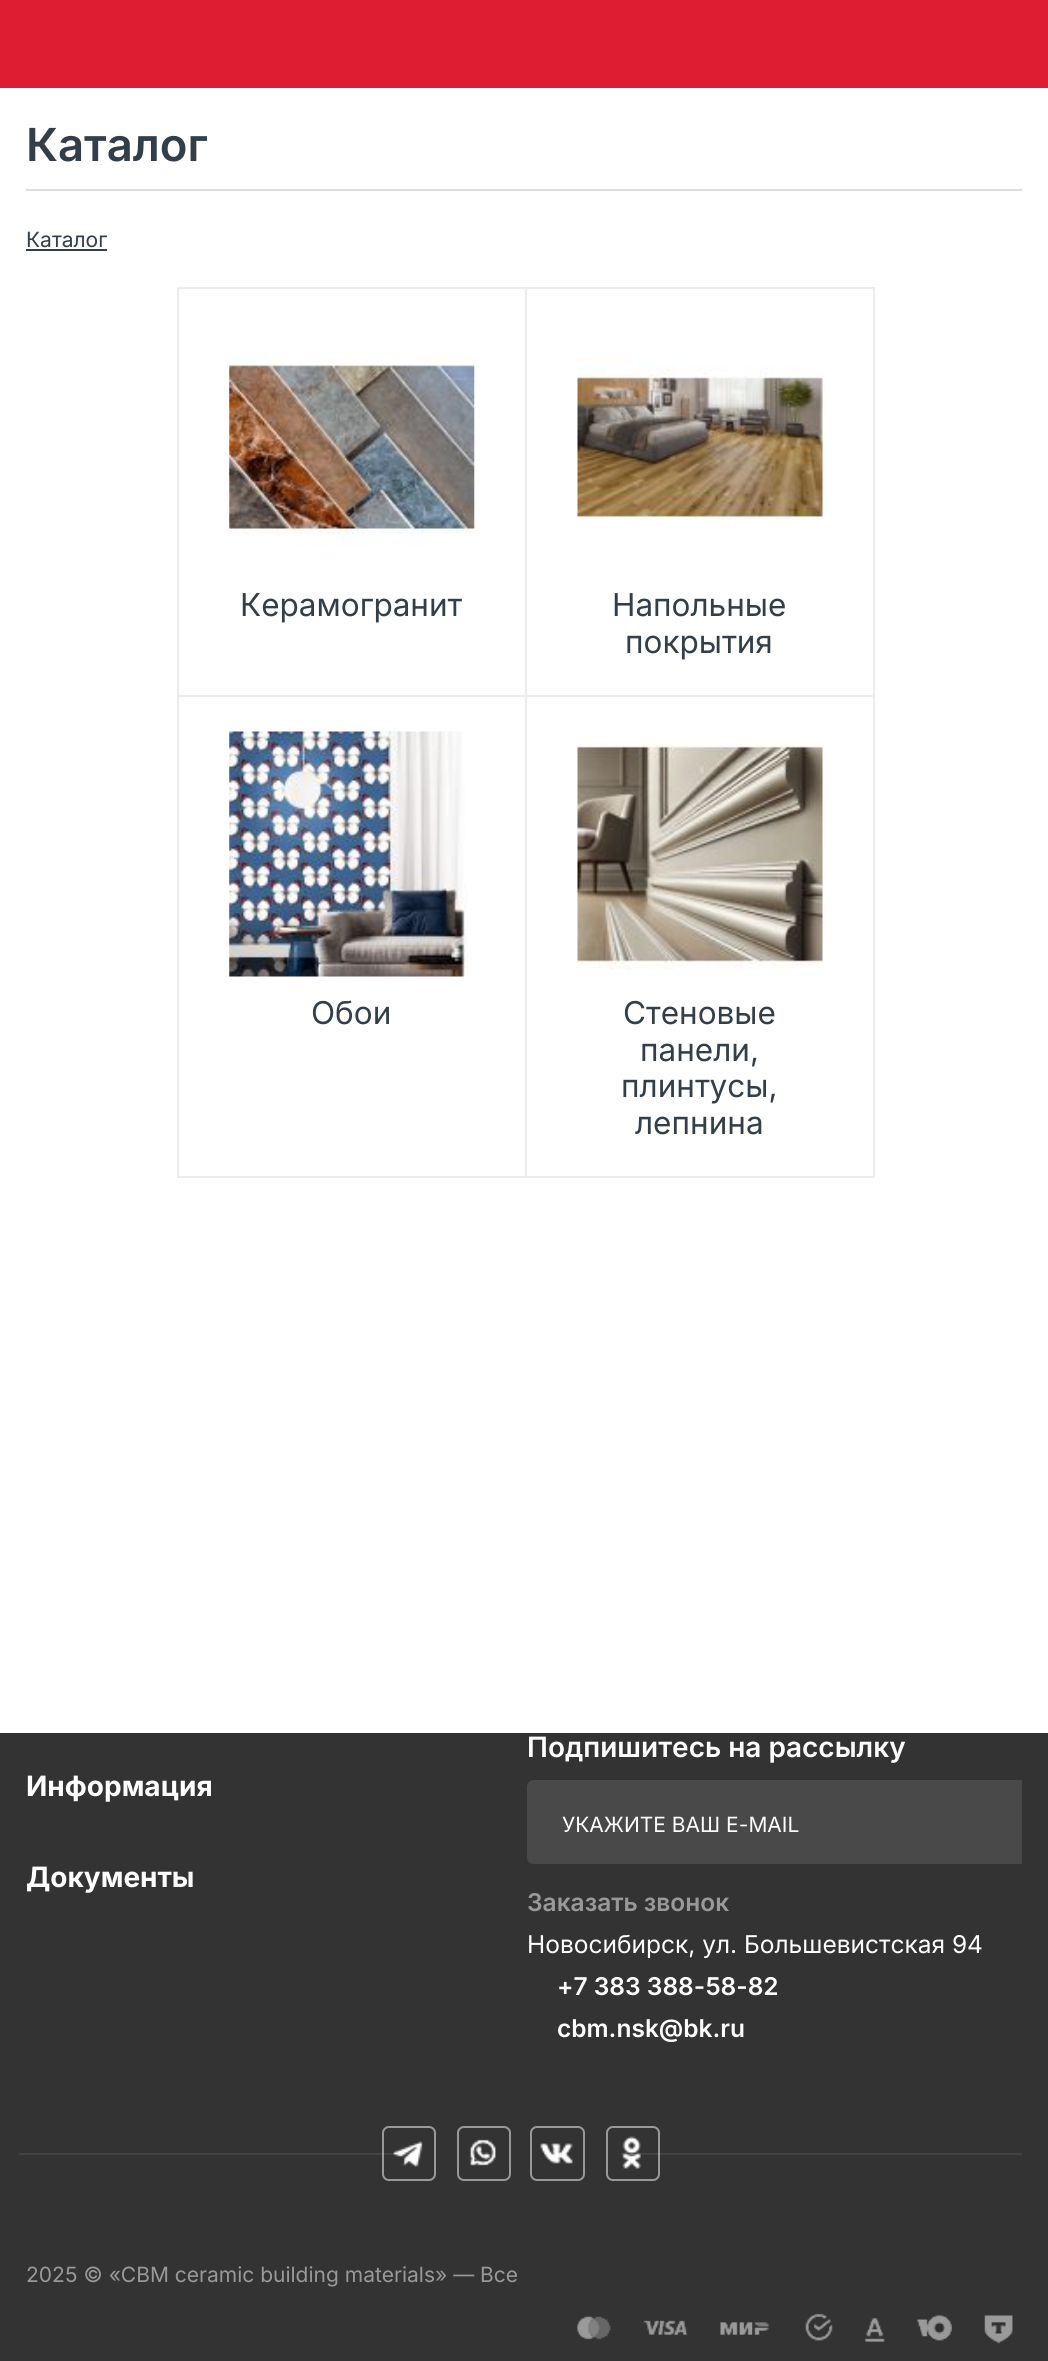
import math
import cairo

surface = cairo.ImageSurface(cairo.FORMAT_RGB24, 1048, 2361)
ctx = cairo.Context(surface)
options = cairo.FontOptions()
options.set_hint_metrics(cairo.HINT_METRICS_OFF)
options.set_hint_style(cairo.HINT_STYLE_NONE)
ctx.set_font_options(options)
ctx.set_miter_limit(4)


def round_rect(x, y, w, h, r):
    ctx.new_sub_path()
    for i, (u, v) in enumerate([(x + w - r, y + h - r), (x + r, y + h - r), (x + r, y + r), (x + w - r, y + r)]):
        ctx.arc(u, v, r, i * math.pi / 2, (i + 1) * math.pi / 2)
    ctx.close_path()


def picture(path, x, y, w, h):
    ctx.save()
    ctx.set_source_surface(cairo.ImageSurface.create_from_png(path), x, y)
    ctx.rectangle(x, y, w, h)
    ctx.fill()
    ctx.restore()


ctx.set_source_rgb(1, 1, 1)
ctx.paint()
ctx.set_source_rgb(0.875, 0.114, 0.196)
ctx.rectangle(0, 0, 1048, 88)
ctx.fill()
ctx.set_source_rgb(0.867, 0.867, 0.867)
ctx.rectangle(26, 189, 996, 2)
ctx.fill()
ctx.select_font_face("Inter SemiBold")
ctx.set_font_size(45.5)
ctx.set_source_rgb(0.2, 0.243, 0.282)
ctx.move_to(26, 161)
ctx.show_text("Каталог")
ctx.select_font_face("Inter")
ctx.set_font_size(21)
ctx.move_to(26, 247)
ctx.show_text("Каталог")
ctx.rectangle(26, 249, 81, 2)
ctx.fill()
ctx.rectangle(178, 288, 348, 408)
ctx.set_source_rgb(0.925, 0.925, 0.925)
ctx.stroke()
picture("img1.png", 229, 352, 246, 195)
ctx.set_font_size(31.5)
ctx.set_source_rgb(0.2, 0.243, 0.282)
ctx.move_to(240, 616)
ctx.show_text("Керамогранит")
ctx.rectangle(526, 288, 348, 408)
ctx.set_source_rgb(0.925, 0.925, 0.925)
ctx.stroke()
picture("img2.png", 577, 353, 246, 167)
ctx.set_source_rgb(0.2, 0.243, 0.282)
ctx.move_to(612, 616)
ctx.show_text("Напольные")
ctx.move_to(625, 653)
ctx.show_text("покрытия")
ctx.rectangle(178, 696, 348, 481)
ctx.set_source_rgb(0.925, 0.925, 0.925)
ctx.stroke()
picture("img3.png", 229, 731, 239, 246)
ctx.set_source_rgb(0.2, 0.243, 0.282)
ctx.move_to(311, 1024)
ctx.show_text("Обои")
ctx.rectangle(526, 696, 348, 481)
ctx.set_source_rgb(0.925, 0.925, 0.925)
ctx.stroke()
picture("img4.png", 577, 742, 246, 234)
ctx.set_source_rgb(0.2, 0.243, 0.282)
ctx.move_to(623, 1024)
ctx.show_text("Стеновые")
ctx.move_to(640, 1061)
ctx.show_text("панели,")
ctx.move_to(621, 1097)
ctx.show_text("плинтусы,")
ctx.move_to(635, 1134)
ctx.show_text("лепнина")
ctx.set_source_rgb(0.2, 0.2, 0.2)
ctx.rectangle(0, 1733, 1048, 628)
ctx.fill()
ctx.select_font_face("Inter", cairo.FONT_SLANT_NORMAL, cairo.FONT_WEIGHT_BOLD)
ctx.set_font_size(28)
ctx.set_source_rgb(1, 1, 1)
ctx.move_to(26, 1796)
ctx.show_text("Информация")
ctx.move_to(26, 1887)
ctx.show_text("Документы")
ctx.select_font_face("Inter SemiBold")
ctx.move_to(527, 1757)
ctx.show_text("Подпишитесь на рассылку")
ctx.set_source_rgb(0.286, 0.286, 0.286)
ctx.new_path()
ctx.move_to(534, 1780)
ctx.line_to(949, 1780)
ctx.line_to(949, 1864)
ctx.line_to(534, 1864)
ctx.curve_to(530, 1864, 527, 1861, 527, 1857)
ctx.line_to(527, 1787)
ctx.curve_to(527, 1783, 530, 1780, 534, 1780)
ctx.close_path()
ctx.fill()
ctx.select_font_face("Inter")
ctx.set_font_size(21)
ctx.set_source_rgb(1, 1, 1)
ctx.move_to(562, 1832)
ctx.show_text("УКАЖИТЕ ВАШ E-MAIL")
ctx.set_source_rgb(0.286, 0.286, 0.286)
ctx.rectangle(949, 1780, 73, 84)
ctx.fill()
ctx.select_font_face("Inter SemiBold")
ctx.set_font_size(24.5)
ctx.set_source_rgb(0.6, 0.6, 0.6)
ctx.move_to(527, 1911)
ctx.show_text("Заказать звонок")
ctx.select_font_face("Inter")
ctx.set_source_rgb(1, 1, 1)
ctx.move_to(527, 1953)
ctx.show_text("Новосибирск, ул. Большевистская 94")
ctx.select_font_face("Inter SemiBold")
ctx.move_to(557, 1995)
ctx.show_text("+7 383 388-58-82")
ctx.move_to(557, 2037)
ctx.show_text("cbm.nsk@bk.ru")
picture("img5.png", 393, 2141, 30, 26)
round_rect(383, 2127, 52, 53, 6)
ctx.set_source_rgb(0.6, 0.6, 0.6)
ctx.stroke()
picture("img6.png", 470, 2139, 26, 27)
round_rect(458, 2127, 52, 53, 6)
ctx.stroke()
picture("img7.png", 540, 2143, 33, 21)
round_rect(531, 2127, 53, 53, 6)
ctx.stroke()
picture("img8.png", 622, 2136, 19, 33)
round_rect(607, 2127, 52, 53, 6)
ctx.stroke()
ctx.set_source_rgba(1, 1, 1, 0.08)
ctx.rectangle(19, 2153, 401, 2)
ctx.fill()
ctx.rectangle(621, 2153, 401, 2)
ctx.fill()
ctx.select_font_face("Inter")
ctx.set_font_size(21)
ctx.set_source_rgb(0.6, 0.6, 0.6)
ctx.move_to(26, 2282)
ctx.show_text("2025 © «CBM ceramic building materials» — Все")
picture("img9.png", 577, 2313, 436, 31)
surface.write_to_png("page.png")
